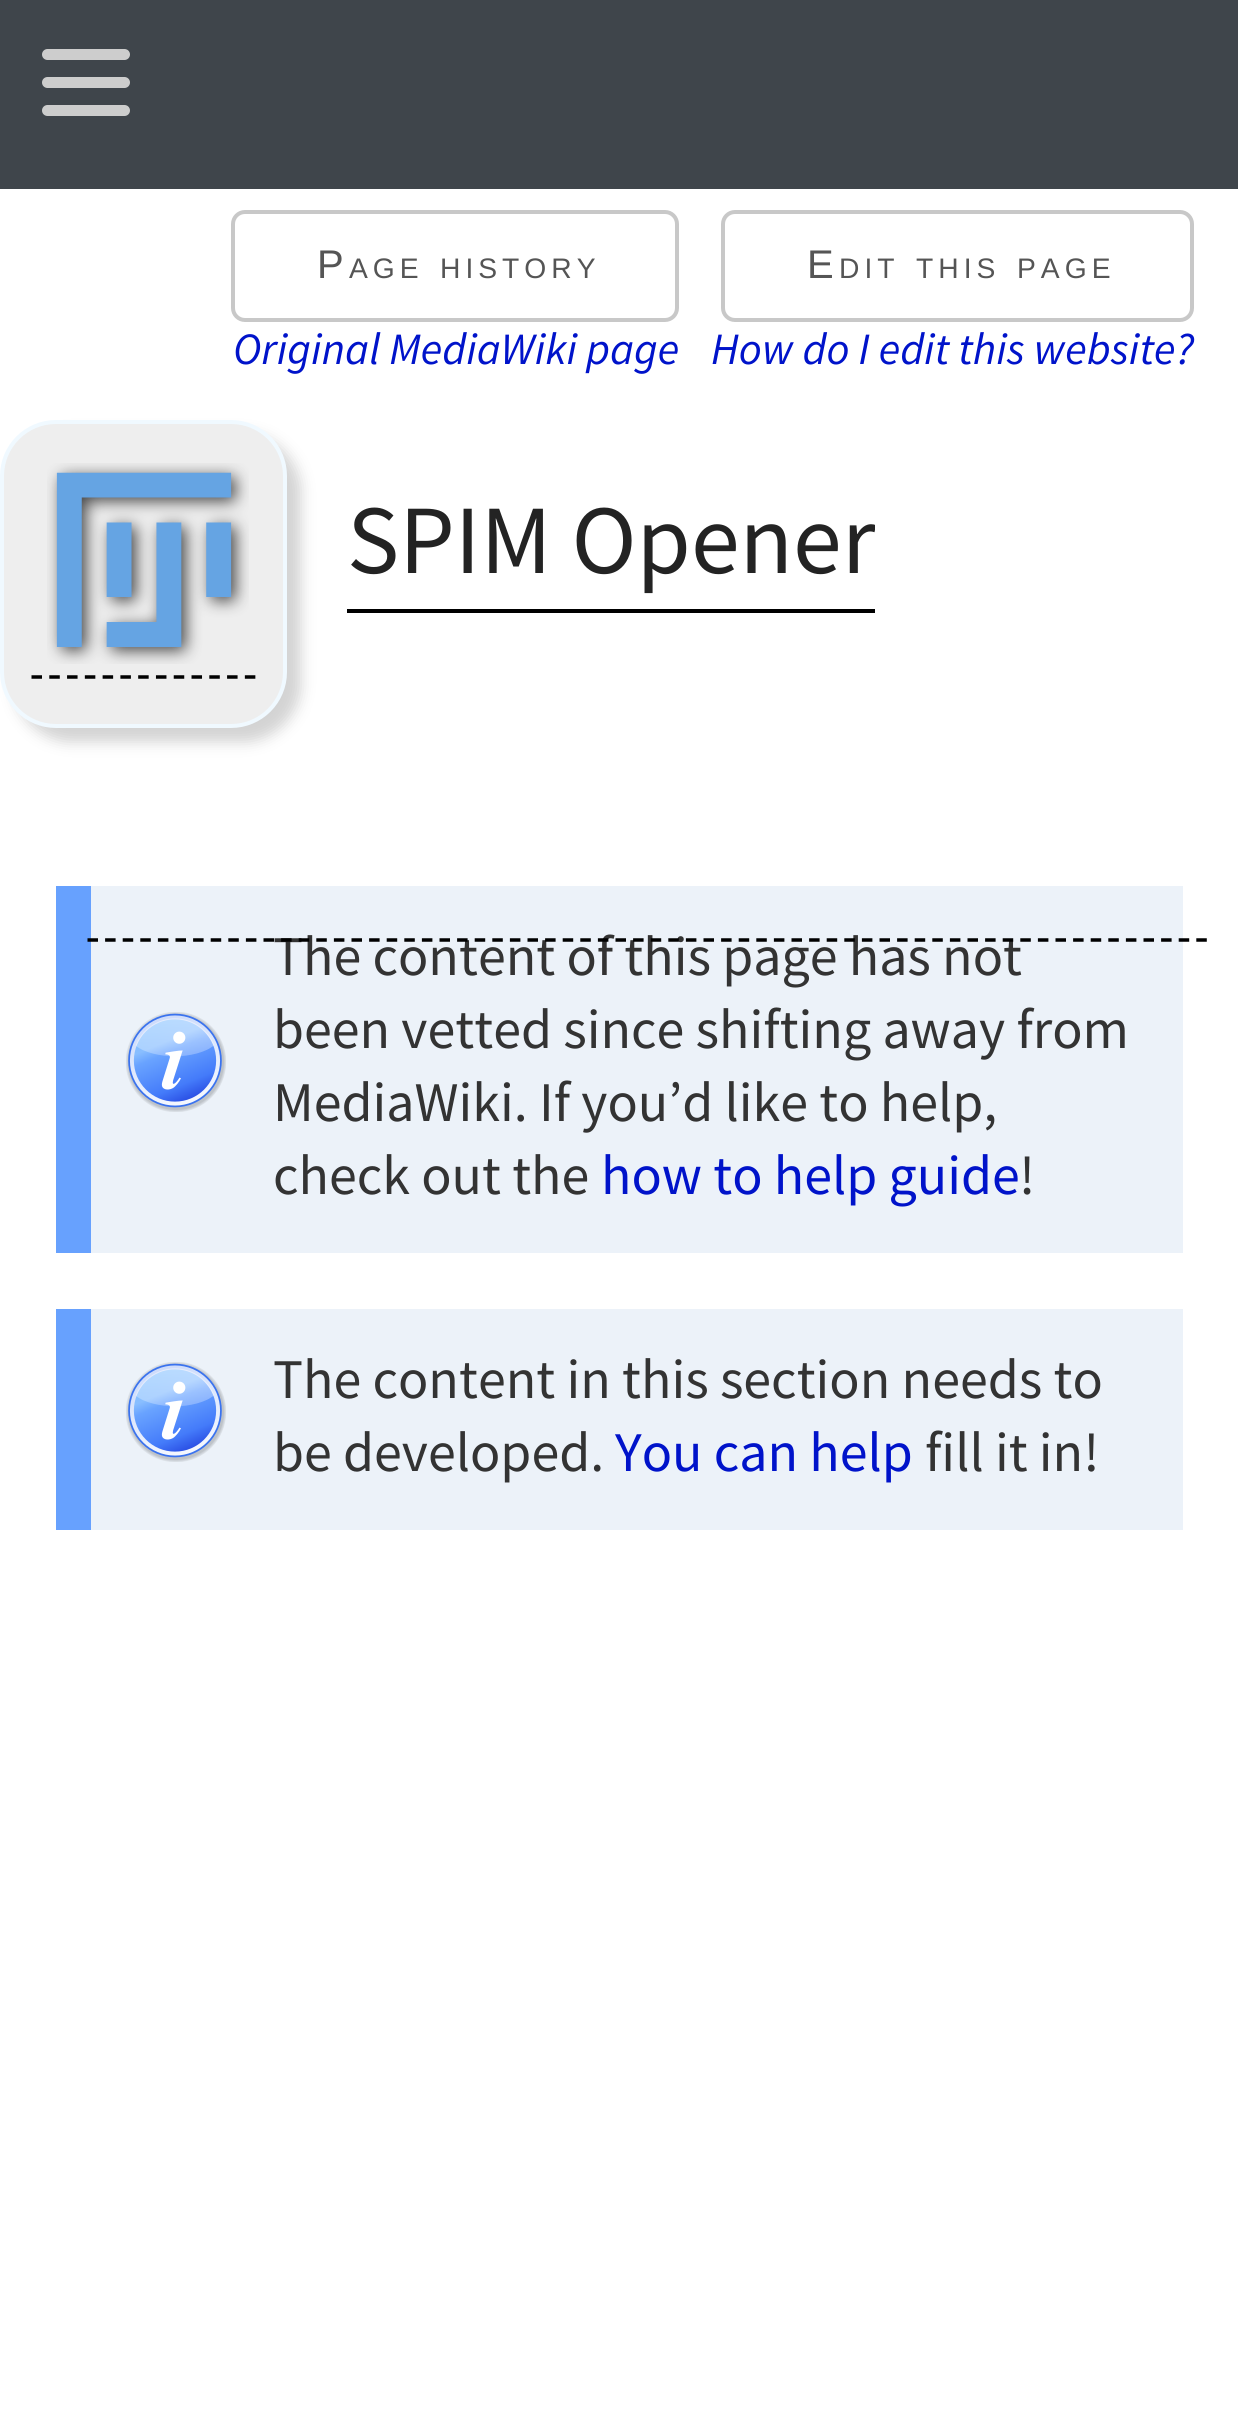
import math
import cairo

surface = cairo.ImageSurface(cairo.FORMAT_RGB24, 1238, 2433)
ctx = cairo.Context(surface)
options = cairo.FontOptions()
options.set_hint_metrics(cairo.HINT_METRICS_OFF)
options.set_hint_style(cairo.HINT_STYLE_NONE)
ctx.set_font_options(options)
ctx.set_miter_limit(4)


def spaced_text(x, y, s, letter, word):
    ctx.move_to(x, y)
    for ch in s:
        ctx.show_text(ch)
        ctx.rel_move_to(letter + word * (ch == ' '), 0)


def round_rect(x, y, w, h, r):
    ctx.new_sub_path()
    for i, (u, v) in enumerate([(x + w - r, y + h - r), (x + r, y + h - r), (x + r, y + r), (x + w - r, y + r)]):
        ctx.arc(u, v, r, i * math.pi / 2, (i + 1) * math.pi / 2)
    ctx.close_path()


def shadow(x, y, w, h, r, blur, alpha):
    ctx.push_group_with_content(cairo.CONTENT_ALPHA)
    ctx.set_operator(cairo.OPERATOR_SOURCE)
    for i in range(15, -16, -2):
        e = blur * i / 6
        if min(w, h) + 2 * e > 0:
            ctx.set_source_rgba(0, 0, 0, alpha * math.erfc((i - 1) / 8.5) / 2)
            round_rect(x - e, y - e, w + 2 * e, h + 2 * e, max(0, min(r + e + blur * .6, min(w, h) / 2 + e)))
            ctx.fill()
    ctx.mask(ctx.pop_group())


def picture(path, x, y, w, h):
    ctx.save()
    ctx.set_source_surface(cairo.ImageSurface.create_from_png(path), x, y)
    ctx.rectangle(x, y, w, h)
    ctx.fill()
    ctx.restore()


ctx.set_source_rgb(1, 1, 1)
ctx.paint()
ctx.set_source_rgb(0.247, 0.271, 0.294)
ctx.rectangle(0, 0, 1238, 189)
ctx.fill()
ctx.set_source_rgb(0.804, 0.804, 0.804)
round_rect(42, 49, 88, 11, 5.5)
ctx.fill()
round_rect(42, 77, 88, 11, 5.5)
ctx.fill()
round_rect(42, 105, 88, 11, 5.5)
ctx.fill()
round_rect(233, 212, 444, 108, 12)
ctx.set_source_rgb(0.784, 0.784, 0.784)
ctx.set_line_width(4)
ctx.stroke()
ctx.select_font_face("Liberation Sans")
ctx.set_font_size(40)
ctx.set_source_rgb(0.333, 0.333, 0.333)
spaced_text(317, 278, "P", 5, 0)
ctx.set_font_size(28.25)
spaced_text(349, 278, "AGE", 5, 0)
spaced_text(440, 278, "HISTORY", 5, 0)
ctx.select_font_face("Source Sans Pro", cairo.FONT_SLANT_ITALIC)
ctx.set_font_size(44.75)
ctx.set_source_rgb(0, 0.078, 0.792)
ctx.move_to(233, 364)
ctx.show_text("Original MediaWiki page")
round_rect(723, 212, 469, 108, 12)
ctx.set_source_rgb(0.784, 0.784, 0.784)
ctx.stroke()
ctx.select_font_face("Liberation Sans")
ctx.set_font_size(40)
ctx.set_source_rgb(0.333, 0.333, 0.333)
spaced_text(807, 278, "E", 5, 0)
ctx.set_font_size(28.25)
spaced_text(839, 278, "DIT", 5, 0)
spaced_text(916, 278, "THIS", 5, 0)
spaced_text(1017, 278, "PAGE", 5, 0)
ctx.select_font_face("Source Sans Pro", cairo.FONT_SLANT_ITALIC)
ctx.set_font_size(44.75)
ctx.set_source_rgb(0, 0.078, 0.792)
ctx.move_to(711, 364)
ctx.show_text("How do I edit this website?")
ctx.set_source_rgb(0.827, 0.827, 0.827)
shadow(14, 434, 287, 308, 56, 7, 1)
ctx.set_source_rgb(0.933, 0.933, 0.933)
round_rect(2, 422, 283, 304, 54)
ctx.fill_preserve()
ctx.set_source_rgb(0.941, 0.973, 1)
ctx.stroke()
picture("img1.png", 47, 463, 202, 201)
ctx.new_path()
ctx.move_to(31.5, 677)
ctx.line_to(255.5, 677)
ctx.set_source_rgb(0, 0, 0)
ctx.set_line_width(3.5)
ctx.set_dash([10.5, 7.28])
ctx.stroke()
ctx.set_source_rgb(0.922, 0.949, 0.973)
ctx.rectangle(91, 886, 1092, 367)
ctx.fill()
ctx.set_source_rgb(0.404, 0.631, 0.996)
ctx.rectangle(56, 886, 35, 367)
ctx.fill()
ctx.select_font_face("Source Sans Pro")
ctx.set_font_size(56)
ctx.set_source_rgb(0.2, 0.2, 0.2)
ctx.move_to(273, 975)
ctx.show_text("The content of this page has not")
ctx.new_path()
ctx.move_to(87.5, 940)
ctx.line_to(1207.5, 940)
ctx.set_source_rgb(0, 0, 0)
ctx.set_dash([10.5, 7.1])
ctx.stroke()
ctx.rectangle(347, 609, 528, 4)
ctx.fill()
ctx.save()
ctx.rectangle(347, 476, 528, 133)
ctx.clip()
ctx.set_font_size(98)
ctx.set_source_rgb(0.137, 0.137, 0.137)
ctx.move_to(347, 573)
ctx.show_text("SPIM Opener")
ctx.restore()
picture("img2.png", 126, 1012, 100, 100)
ctx.set_source_rgb(0.2, 0.2, 0.2)
ctx.move_to(273, 1048)
ctx.show_text("been vetted since shifting away from")
ctx.move_to(273, 1121)
ctx.show_text("MediaWiki. If you’d like to help,")
ctx.move_to(273, 1194)
ctx.show_text("check out the")
ctx.set_source_rgb(0, 0.078, 0.792)
ctx.move_to(601, 1194)
ctx.show_text("how to help guide")
ctx.set_source_rgb(0.2, 0.2, 0.2)
ctx.move_to(1019, 1194)
ctx.show_text("!")
ctx.set_source_rgb(0.922, 0.949, 0.973)
ctx.rectangle(91, 1309, 1092, 221)
ctx.fill()
ctx.set_source_rgb(0.404, 0.631, 0.996)
ctx.rectangle(56, 1309, 35, 221)
ctx.fill()
picture("img2.png", 126, 1362, 100, 100)
ctx.set_source_rgb(0.2, 0.2, 0.2)
ctx.move_to(273, 1398)
ctx.show_text("The content in this section needs to")
ctx.move_to(273, 1471)
ctx.show_text("be developed.")
ctx.set_source_rgb(0, 0.078, 0.792)
ctx.move_to(615, 1471)
ctx.show_text("You can help")
ctx.set_source_rgb(0.2, 0.2, 0.2)
ctx.move_to(925, 1471)
ctx.show_text("fill it in!")
surface.write_to_png("page.png")
